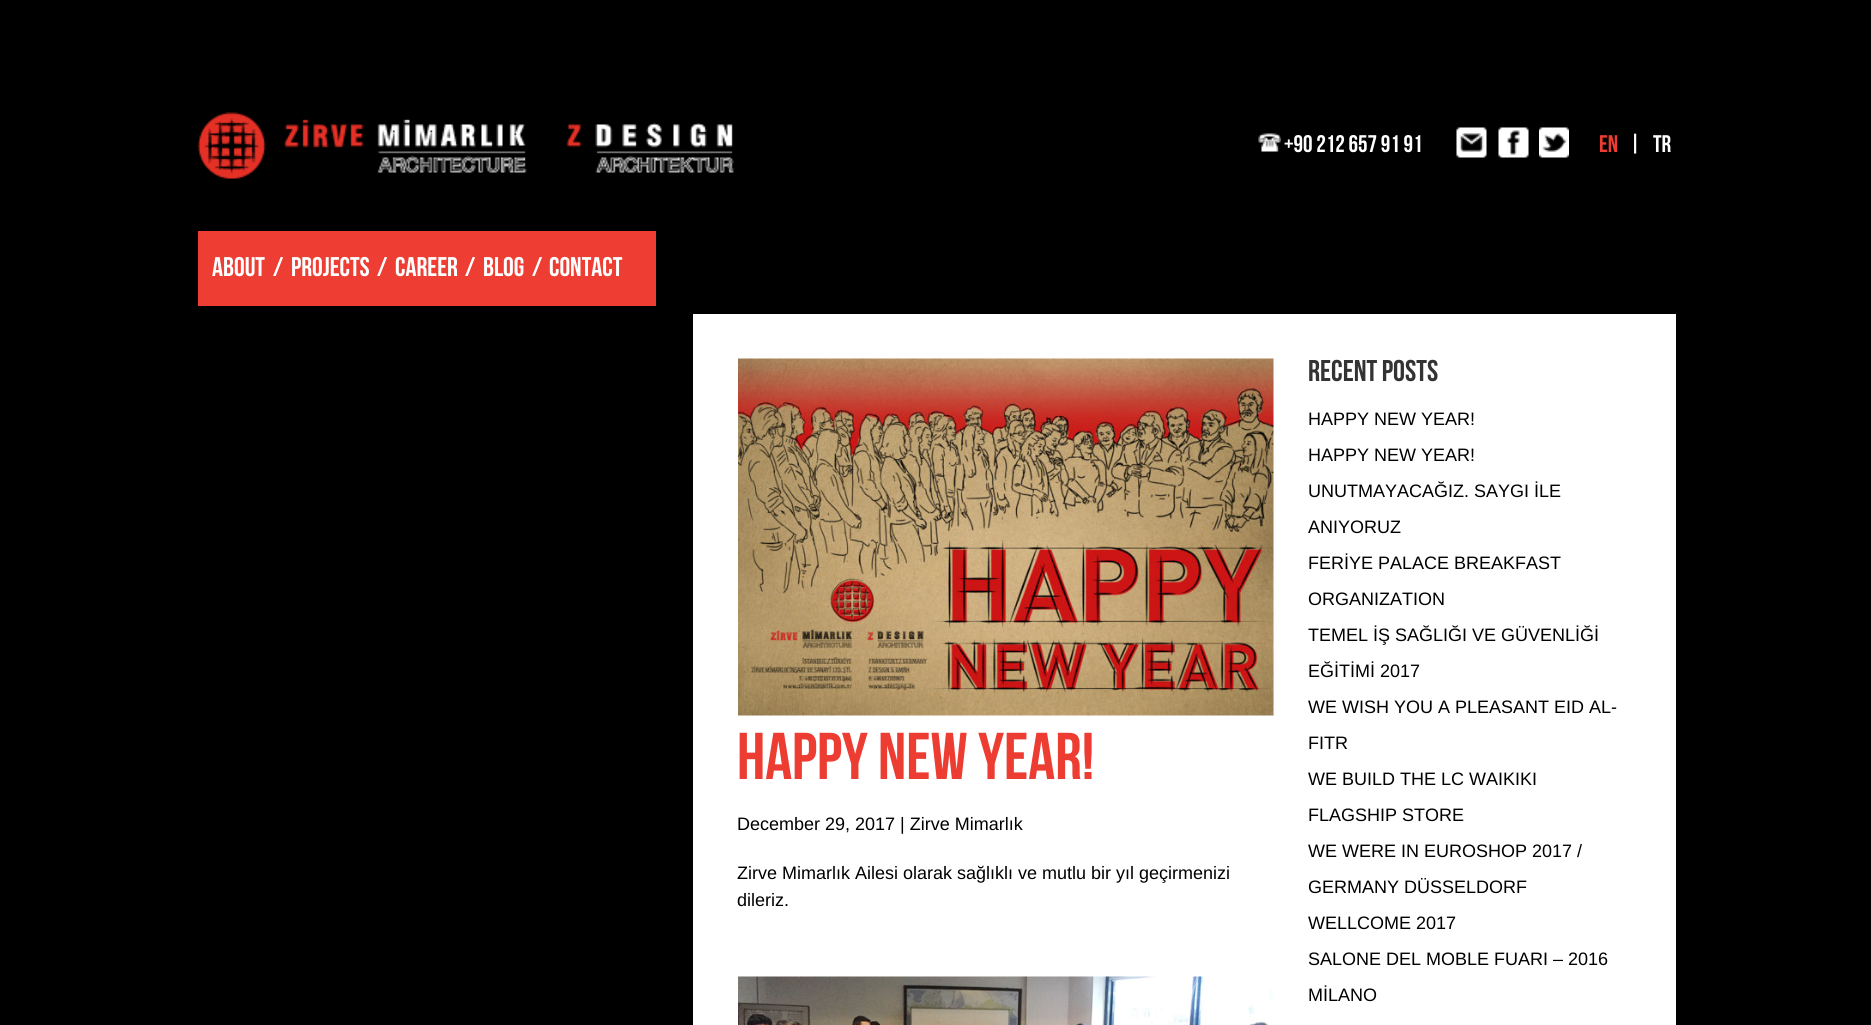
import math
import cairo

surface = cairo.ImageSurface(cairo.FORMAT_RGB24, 1871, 1025)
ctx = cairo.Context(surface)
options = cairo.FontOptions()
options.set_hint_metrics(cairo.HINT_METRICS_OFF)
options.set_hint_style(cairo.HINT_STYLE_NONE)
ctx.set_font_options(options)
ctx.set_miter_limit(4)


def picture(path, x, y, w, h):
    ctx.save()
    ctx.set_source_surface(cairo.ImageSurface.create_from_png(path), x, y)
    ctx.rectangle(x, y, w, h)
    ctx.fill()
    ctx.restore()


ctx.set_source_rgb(0, 0, 0)
ctx.paint()
picture("img1.png", 198, 112, 536, 67)
picture("img2.png", 1258, 133, 23, 19)
ctx.select_font_face("Bebas Neue")
ctx.set_font_size(24)
ctx.set_source_rgb(1, 1, 1)
ctx.move_to(1284, 152)
ctx.show_text("+90 212 657 91 91")
picture("img3.png", 1456, 127, 31, 31)
picture("img4.png", 1498, 127, 31, 31)
picture("img5.png", 1539, 127, 30, 31)
ctx.set_source_rgb(0.929, 0.239, 0.196)
ctx.move_to(1599, 152)
ctx.show_text("EN")
ctx.set_source_rgb(1, 1, 1)
ctx.move_to(1629, 152)
ctx.show_text("|")
ctx.move_to(1653, 152)
ctx.show_text("TR")
ctx.set_source_rgb(0.933, 0.239, 0.196)
ctx.rectangle(198, 231, 458, 75)
ctx.fill()
ctx.set_font_size(27)
ctx.set_source_rgb(1, 1, 1)
ctx.move_to(212, 276)
ctx.show_text("ABOUT")
ctx.move_to(273, 276)
ctx.show_text("/")
ctx.move_to(291, 276)
ctx.show_text("PROJECTS")
ctx.move_to(377, 276)
ctx.show_text("/")
ctx.move_to(395, 276)
ctx.show_text("CAREER")
ctx.move_to(465, 276)
ctx.show_text("/")
ctx.move_to(483, 276)
ctx.show_text("BLOG")
ctx.move_to(532, 276)
ctx.show_text("/")
ctx.move_to(549, 276)
ctx.show_text("CONTACT")
ctx.rectangle(693, 314, 983, 711)
ctx.fill()
picture("img6.png", 738, 358, 536, 358)
ctx.set_font_size(66)
ctx.set_source_rgb(0.929, 0.239, 0.196)
ctx.move_to(737, 779)
ctx.show_text("HAPPY NEW YEAR!")
ctx.select_font_face("Liberation Sans")
ctx.set_font_size(18)
ctx.set_source_rgb(0, 0, 0)
ctx.move_to(737, 830)
ctx.show_text("December 29, 2017 | Zirve Mimarlık")
ctx.move_to(737, 879)
ctx.show_text("Zirve Mimarlık Ailesi olarak sağlıklı ve mutlu bir yıl geçirmenizi")
ctx.move_to(737, 906)
ctx.show_text("dileriz.")
picture("img7.png", 738, 976, 535, 49)
ctx.select_font_face("Bebas Neue")
ctx.set_font_size(30)
ctx.set_source_rgb(0.2, 0.2, 0.2)
ctx.move_to(1308, 381)
ctx.show_text("Recent Posts")
ctx.select_font_face("Liberation Sans")
ctx.set_font_size(18)
ctx.set_source_rgb(0, 0, 0)
ctx.move_to(1308, 425)
ctx.show_text("HAPPY NEW YEAR!")
ctx.move_to(1308, 461)
ctx.show_text("HAPPY NEW YEAR!")
ctx.move_to(1308, 497)
ctx.show_text("UNUTMAYACAĞIZ. SAYGI İLE")
ctx.move_to(1308, 533)
ctx.show_text("ANIYORUZ")
ctx.move_to(1308, 569)
ctx.show_text("FERİYE PALACE BREAKFAST")
ctx.move_to(1308, 605)
ctx.show_text("ORGANIZATION")
ctx.move_to(1308, 641)
ctx.show_text("TEMEL İŞ SAĞLIĞI VE GÜVENLİĞİ")
ctx.move_to(1308, 677)
ctx.show_text("EĞİTİMİ 2017")
ctx.move_to(1308, 713)
ctx.show_text("WE WISH YOU A PLEASANT EID AL-")
ctx.move_to(1308, 749)
ctx.show_text("FITR")
ctx.move_to(1308, 785)
ctx.show_text("WE BUILD THE LC WAIKIKI")
ctx.move_to(1308, 821)
ctx.show_text("FLAGSHIP STORE")
ctx.move_to(1308, 857)
ctx.show_text("WE WERE IN EUROSHOP 2017 /")
ctx.move_to(1308, 893)
ctx.show_text("GERMANY DÜSSELDORF")
ctx.move_to(1308, 929)
ctx.show_text("WELLCOME 2017")
ctx.move_to(1308, 965)
ctx.show_text("SALONE DEL MOBLE FUARI – 2016")
ctx.move_to(1308, 1001)
ctx.show_text("MİLANO")
surface.write_to_png("page.png")
